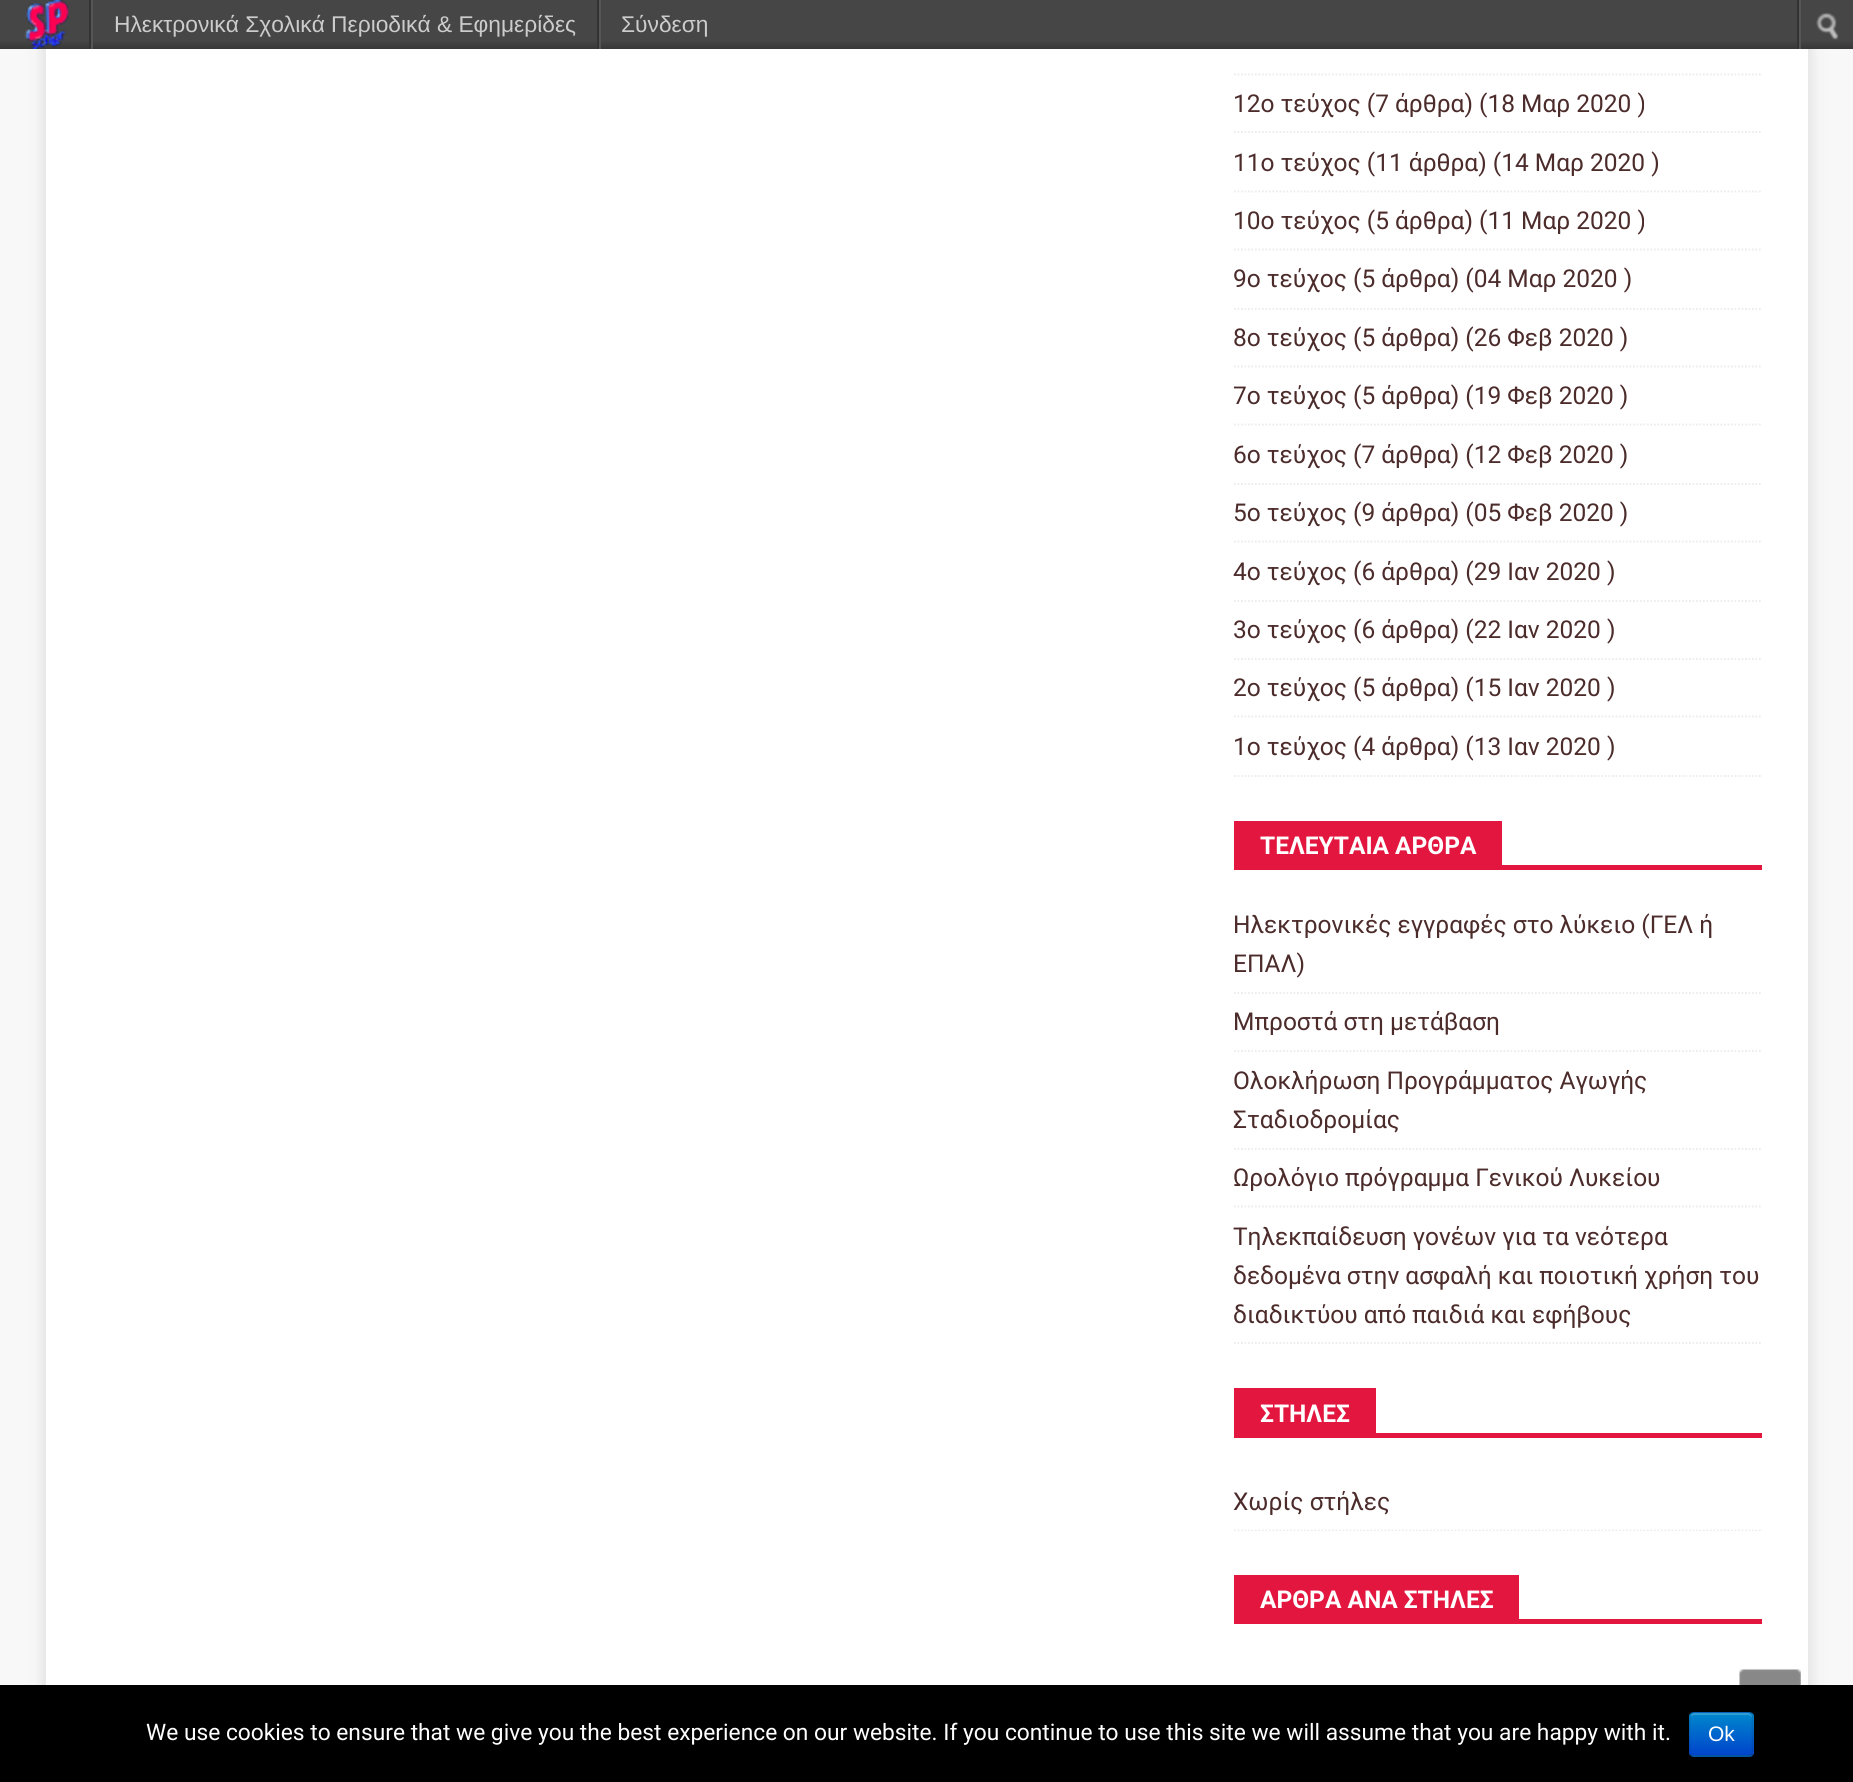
import math
import cairo

surface = cairo.ImageSurface(cairo.FORMAT_RGB24, 1853, 1782)
ctx = cairo.Context(surface)
options = cairo.FontOptions()
options.set_hint_metrics(cairo.HINT_METRICS_OFF)
options.set_hint_style(cairo.HINT_STYLE_NONE)
ctx.set_font_options(options)
ctx.set_miter_limit(4)


def round_rect(x, y, w, h, r):
    ctx.new_sub_path()
    for i, (u, v) in enumerate([(x + w - r, y + h - r), (x + r, y + h - r), (x + r, y + r), (x + w - r, y + r)]):
        ctx.arc(u, v, r, i * math.pi / 2, (i + 1) * math.pi / 2)
    ctx.close_path()


def shadow(x, y, w, h, r, blur, alpha):
    ctx.push_group_with_content(cairo.CONTENT_ALPHA)
    ctx.set_operator(cairo.OPERATOR_SOURCE)
    for i in range(15, -16, -2):
        e = blur * i / 6
        if min(w, h) + 2 * e > 0:
            ctx.set_source_rgba(0, 0, 0, alpha * math.erfc((i - 1) / 8.5) / 2)
            round_rect(x - e, y - e, w + 2 * e, h + 2 * e, max(0, min(r + e + blur * .6, min(w, h) / 2 + e)))
            ctx.fill()
    ctx.mask(ctx.pop_group())


def picture(path, x, y, w, h):
    ctx.save()
    ctx.set_source_surface(cairo.ImageSurface.create_from_png(path), x, y)
    ctx.rectangle(x, y, w, h)
    ctx.fill()
    ctx.restore()


ctx.set_source_rgb(0.969, 0.969, 0.969)
ctx.paint()
ctx.set_source_rgb(0.196, 0.196, 0.196)
shadow(46, -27, 1762, 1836, 0, 9, 0.17)
gradient = cairo.LinearGradient(927, 49, 927, 0)
gradient.add_color_stop_rgba(0, 0.216, 0.216, 0.216, 1)
gradient.add_color_stop_rgba(0.18, 0.275, 0.275, 0.275, 1)
ctx.set_source(gradient)
ctx.rectangle(0, 0, 1797, 49)
ctx.fill()
ctx.set_source_rgb(0.333, 0.333, 0.333)
ctx.rectangle(91, 0, 2, 49)
ctx.fill()
ctx.set_source_rgb(0.2, 0.2, 0.2)
ctx.rectangle(89, 0, 2, 49)
ctx.fill()
picture("img1.png", 24, 0, 45, 49)
ctx.set_source_rgb(0.333, 0.333, 0.333)
ctx.rectangle(599, 0, 2, 49)
ctx.fill()
ctx.set_source_rgb(0.2, 0.2, 0.2)
ctx.rectangle(597, 0, 2, 49)
ctx.fill()
ctx.select_font_face("Liberation Sans")
ctx.set_font_size(22.75)
ctx.set_source_rgb(0.8, 0.8, 0.8)
ctx.move_to(114, 32)
ctx.show_text("Ηλεκτρονικά Σχολικά Περιοδικά & Εφημερίδες")
ctx.move_to(621, 32)
ctx.show_text("Σύνδεση")
gradient = cairo.LinearGradient(1825, 49, 1825, 0)
gradient.add_color_stop_rgba(0, 0.216, 0.216, 0.216, 1)
gradient.add_color_stop_rgba(0.18, 0.275, 0.275, 0.275, 1)
ctx.set_source(gradient)
ctx.rectangle(1801, 0, 52, 49)
ctx.fill()
ctx.set_source_rgb(0.2, 0.2, 0.2)
ctx.rectangle(1797, 0, 2, 49)
ctx.fill()
ctx.set_source_rgb(0.333, 0.333, 0.333)
ctx.rectangle(1799, 0, 2, 49)
ctx.fill()
picture("img2.png", 1816, 12, 23, 28)
ctx.set_source_rgb(1, 1, 1)
ctx.rectangle(46, 49, 1762, 1636)
ctx.fill()
ctx.new_path()
ctx.move_to(1234, 74.5)
ctx.line_to(1762, 74.5)
ctx.set_source_rgb(0.922, 0.922, 0.922)
ctx.set_line_width(1.8)
ctx.set_dash([1.75, 1.75])
ctx.stroke()
ctx.new_path()
ctx.move_to(1234, 132)
ctx.line_to(1762, 132)
ctx.stroke()
ctx.select_font_face("Roboto")
ctx.set_font_size(24.5)
ctx.set_source_rgb(0.298, 0.169, 0.169)
ctx.move_to(1233, 112)
ctx.show_text("12ο τεύχος (7 άρθρα) (18 Μαρ 2020 )")
ctx.new_path()
ctx.move_to(1234, 191.5)
ctx.line_to(1762, 191.5)
ctx.set_source_rgb(0.922, 0.922, 0.922)
ctx.stroke()
ctx.set_source_rgb(0.298, 0.169, 0.169)
ctx.move_to(1233, 171)
ctx.show_text("11ο τεύχος (11 άρθρα) (14 Μαρ 2020 )")
ctx.new_path()
ctx.move_to(1234, 249.5)
ctx.line_to(1762, 249.5)
ctx.set_source_rgb(0.922, 0.922, 0.922)
ctx.stroke()
ctx.set_source_rgb(0.298, 0.169, 0.169)
ctx.move_to(1233, 229)
ctx.show_text("10ο τεύχος (5 άρθρα) (11 Μαρ 2020 )")
ctx.new_path()
ctx.move_to(1234, 309)
ctx.line_to(1762, 309)
ctx.set_source_rgb(0.922, 0.922, 0.922)
ctx.stroke()
ctx.set_source_rgb(0.298, 0.169, 0.169)
ctx.move_to(1233, 287)
ctx.show_text("9ο τεύχος (5 άρθρα) (04 Μαρ 2020 )")
ctx.new_path()
ctx.move_to(1234, 366.5)
ctx.line_to(1762, 366.5)
ctx.set_source_rgb(0.922, 0.922, 0.922)
ctx.stroke()
ctx.set_source_rgb(0.298, 0.169, 0.169)
ctx.move_to(1233, 346)
ctx.show_text("8ο τεύχος (5 άρθρα) (26 Φεβ 2020 )")
ctx.new_path()
ctx.move_to(1234, 424.5)
ctx.line_to(1762, 424.5)
ctx.set_source_rgb(0.922, 0.922, 0.922)
ctx.stroke()
ctx.set_source_rgb(0.298, 0.169, 0.169)
ctx.move_to(1233, 404)
ctx.show_text("7ο τεύχος (5 άρθρα) (19 Φεβ 2020 )")
ctx.new_path()
ctx.move_to(1234, 484)
ctx.line_to(1762, 484)
ctx.set_source_rgb(0.922, 0.922, 0.922)
ctx.stroke()
ctx.set_source_rgb(0.298, 0.169, 0.169)
ctx.move_to(1233, 463)
ctx.show_text("6ο τεύχος (7 άρθρα) (12 Φεβ 2020 )")
ctx.new_path()
ctx.move_to(1234, 541.5)
ctx.line_to(1762, 541.5)
ctx.set_source_rgb(0.922, 0.922, 0.922)
ctx.stroke()
ctx.set_source_rgb(0.298, 0.169, 0.169)
ctx.move_to(1233, 521)
ctx.show_text("5ο τεύχος (9 άρθρα) (05 Φεβ 2020 )")
ctx.new_path()
ctx.move_to(1234, 601)
ctx.line_to(1762, 601)
ctx.set_source_rgb(0.922, 0.922, 0.922)
ctx.stroke()
ctx.set_source_rgb(0.298, 0.169, 0.169)
ctx.move_to(1233, 580)
ctx.show_text("4ο τεύχος (6 άρθρα) (29 Ιαν 2020 )")
ctx.new_path()
ctx.move_to(1234, 659)
ctx.line_to(1762, 659)
ctx.set_source_rgb(0.922, 0.922, 0.922)
ctx.stroke()
ctx.set_source_rgb(0.298, 0.169, 0.169)
ctx.move_to(1233, 638)
ctx.show_text("3ο τεύχος (6 άρθρα) (22 Ιαν 2020 )")
ctx.new_path()
ctx.move_to(1234, 716.5)
ctx.line_to(1762, 716.5)
ctx.set_source_rgb(0.922, 0.922, 0.922)
ctx.stroke()
ctx.set_source_rgb(0.298, 0.169, 0.169)
ctx.move_to(1233, 696)
ctx.show_text("2ο τεύχος (5 άρθρα) (15 Ιαν 2020 )")
ctx.new_path()
ctx.move_to(1234, 776)
ctx.line_to(1762, 776)
ctx.set_source_rgb(0.922, 0.922, 0.922)
ctx.stroke()
ctx.set_source_rgb(0.298, 0.169, 0.169)
ctx.move_to(1233, 755)
ctx.show_text("1ο τεύχος (4 άρθρα) (13 Ιαν 2020 )")
ctx.set_source_rgb(0.89, 0.086, 0.247)
ctx.rectangle(1234, 865, 528, 5)
ctx.fill()
ctx.rectangle(1234, 821, 268, 44)
ctx.fill()
ctx.select_font_face("Roboto", cairo.FONT_SLANT_NORMAL, cairo.FONT_WEIGHT_BOLD)
ctx.set_source_rgb(1, 1, 1)
ctx.move_to(1260, 854)
ctx.show_text("ΤΕΛΕΥΤΑΙΑ ΑΡΘΡΑ")
ctx.new_path()
ctx.move_to(1234, 993)
ctx.line_to(1762, 993)
ctx.set_source_rgb(0.922, 0.922, 0.922)
ctx.stroke()
ctx.select_font_face("Roboto")
ctx.set_source_rgb(0.298, 0.169, 0.169)
ctx.move_to(1233, 933)
ctx.show_text("Ηλεκτρονικές εγγραφές στο λύκειο (ΓΕΛ ή")
ctx.move_to(1233, 972)
ctx.show_text("ΕΠΑΛ)")
ctx.new_path()
ctx.move_to(1234, 1051)
ctx.line_to(1762, 1051)
ctx.set_source_rgb(0.922, 0.922, 0.922)
ctx.stroke()
ctx.set_source_rgb(0.298, 0.169, 0.169)
ctx.move_to(1233, 1030)
ctx.show_text("Μπροστά στη μετάβαση")
ctx.new_path()
ctx.move_to(1234, 1149)
ctx.line_to(1762, 1149)
ctx.set_source_rgb(0.922, 0.922, 0.922)
ctx.stroke()
ctx.set_source_rgb(0.298, 0.169, 0.169)
ctx.move_to(1233, 1089)
ctx.show_text("Ολοκλήρωση Προγράμματος Αγωγής")
ctx.move_to(1233, 1128)
ctx.show_text("Σταδιοδρομίας")
ctx.new_path()
ctx.move_to(1234, 1206.5)
ctx.line_to(1762, 1206.5)
ctx.set_source_rgb(0.922, 0.922, 0.922)
ctx.stroke()
ctx.set_source_rgb(0.298, 0.169, 0.169)
ctx.move_to(1233, 1186)
ctx.show_text("Ωρολόγιο πρόγραμμα Γενικού Λυκείου")
ctx.new_path()
ctx.move_to(1234, 1343)
ctx.line_to(1762, 1343)
ctx.set_source_rgb(0.922, 0.922, 0.922)
ctx.stroke()
ctx.set_source_rgb(0.298, 0.169, 0.169)
ctx.move_to(1233, 1245)
ctx.show_text("Τηλεκπαίδευση γονέων για τα νεότερα")
ctx.move_to(1233, 1284)
ctx.show_text("δεδομένα στην ασφαλή και ποιοτική χρήση του")
ctx.move_to(1233, 1323)
ctx.show_text("διαδικτύου από παιδιά και εφήβους")
ctx.set_source_rgb(0.89, 0.086, 0.247)
ctx.rectangle(1234, 1433, 528, 5)
ctx.fill()
ctx.rectangle(1234, 1388, 142, 45)
ctx.fill()
ctx.select_font_face("Roboto", cairo.FONT_SLANT_NORMAL, cairo.FONT_WEIGHT_BOLD)
ctx.set_source_rgb(1, 1, 1)
ctx.move_to(1260, 1422)
ctx.show_text("ΣΤΗΛΕΣ")
ctx.save()
ctx.rectangle(1234, 1388, 528, 143)
ctx.clip()
ctx.new_path()
ctx.move_to(1234, 1530.5)
ctx.line_to(1762, 1530.5)
ctx.set_source_rgb(0.922, 0.922, 0.922)
ctx.stroke()
ctx.restore()
ctx.select_font_face("Roboto")
ctx.set_source_rgb(0.298, 0.169, 0.169)
ctx.move_to(1233, 1510)
ctx.show_text("Χωρίς στήλες")
ctx.set_source_rgb(0.89, 0.086, 0.247)
ctx.rectangle(1234, 1619, 528, 5)
ctx.fill()
ctx.rectangle(1234, 1575, 285, 44)
ctx.fill()
ctx.select_font_face("Roboto", cairo.FONT_SLANT_NORMAL, cairo.FONT_WEIGHT_BOLD)
ctx.set_source_rgb(1, 1, 1)
ctx.move_to(1260, 1608)
ctx.show_text("ΑΡΘΡΑ ΑΝΑ ΣΤΗΛΕΣ")
picture("img3.png", 1739, 1669, 62, 16)
ctx.set_source_rgb(0, 0, 0)
ctx.rectangle(0, 1685, 1853, 97)
ctx.fill()
ctx.select_font_face("Roboto")
ctx.set_font_size(22.75)
ctx.set_source_rgb(1, 1, 1)
ctx.move_to(146, 1740)
ctx.show_text("We use cookies to ensure that we give you the best experience on our website. If you continue to use this site we will assume that you are happy with it.")
ctx.set_source_rgb(0, 0.427, 0.8)
round_rect(1689, 1712, 65, 45, 5)
ctx.fill()
ctx.save()
round_rect(1689, 1712, 65, 45, 5)
ctx.clip()
gradient = cairo.LinearGradient(1721, 1713, 1721, 1755)
gradient.add_color_stop_rgba(0, 0, 0.533, 0.8, 1)
gradient.add_color_stop_rgba(1, 0, 0.267, 0.8, 1)
ctx.set_source(gradient)
ctx.rectangle(1689, 1713, 65, 42)
ctx.fill()
ctx.restore()
ctx.set_source_rgba(1, 1, 1, 0.2)
ctx.new_path()
ctx.move_to(1694, 1715)
ctx.line_to(1748, 1715)
ctx.curve_to(1750, 1715, 1752, 1717, 1752, 1718)
ctx.line_to(1752, 1717)
ctx.curve_to(1752, 1715, 1750, 1713, 1748, 1713)
ctx.line_to(1695, 1713)
ctx.curve_to(1693, 1713, 1691, 1714, 1691, 1716)
ctx.close_path()
ctx.fill()
ctx.new_path()
ctx.move_to(1751.5, 1755)
ctx.curve_to(1750.5, 1755.5, 1749.5, 1756, 1748, 1756)
ctx.line_to(1694, 1756)
ctx.curve_to(1693, 1756, 1691.5, 1755.5, 1691, 1755)
ctx.set_source_rgba(0, 0, 0, 0.25)
ctx.set_dash([])
ctx.stroke()
ctx.new_path()
ctx.move_to(1691, 1755)
ctx.curve_to(1690, 1754, 1689.5, 1753, 1689.5, 1752)
ctx.line_to(1689.5, 1717)
ctx.curve_to(1689.5, 1715.5, 1690, 1714.5, 1691, 1713.5)
ctx.curve_to(1691.5, 1713, 1693, 1712.5, 1694, 1712.5)
ctx.line_to(1748, 1712.5)
ctx.curve_to(1749.5, 1712.5, 1750.5, 1713, 1751.5, 1713.5)
ctx.curve_to(1752, 1714.5, 1752.5, 1715.5, 1752.5, 1717)
ctx.line_to(1752.5, 1752)
ctx.curve_to(1752.5, 1753, 1752, 1754, 1751.5, 1755)
ctx.set_source_rgba(0, 0, 0, 0.1)
ctx.stroke()
ctx.select_font_face("Liberation Sans")
ctx.set_font_size(21)
ctx.set_source_rgb(1, 1, 1)
ctx.move_to(1708, 1741)
ctx.show_text("Ok")
surface.write_to_png("page.png")
